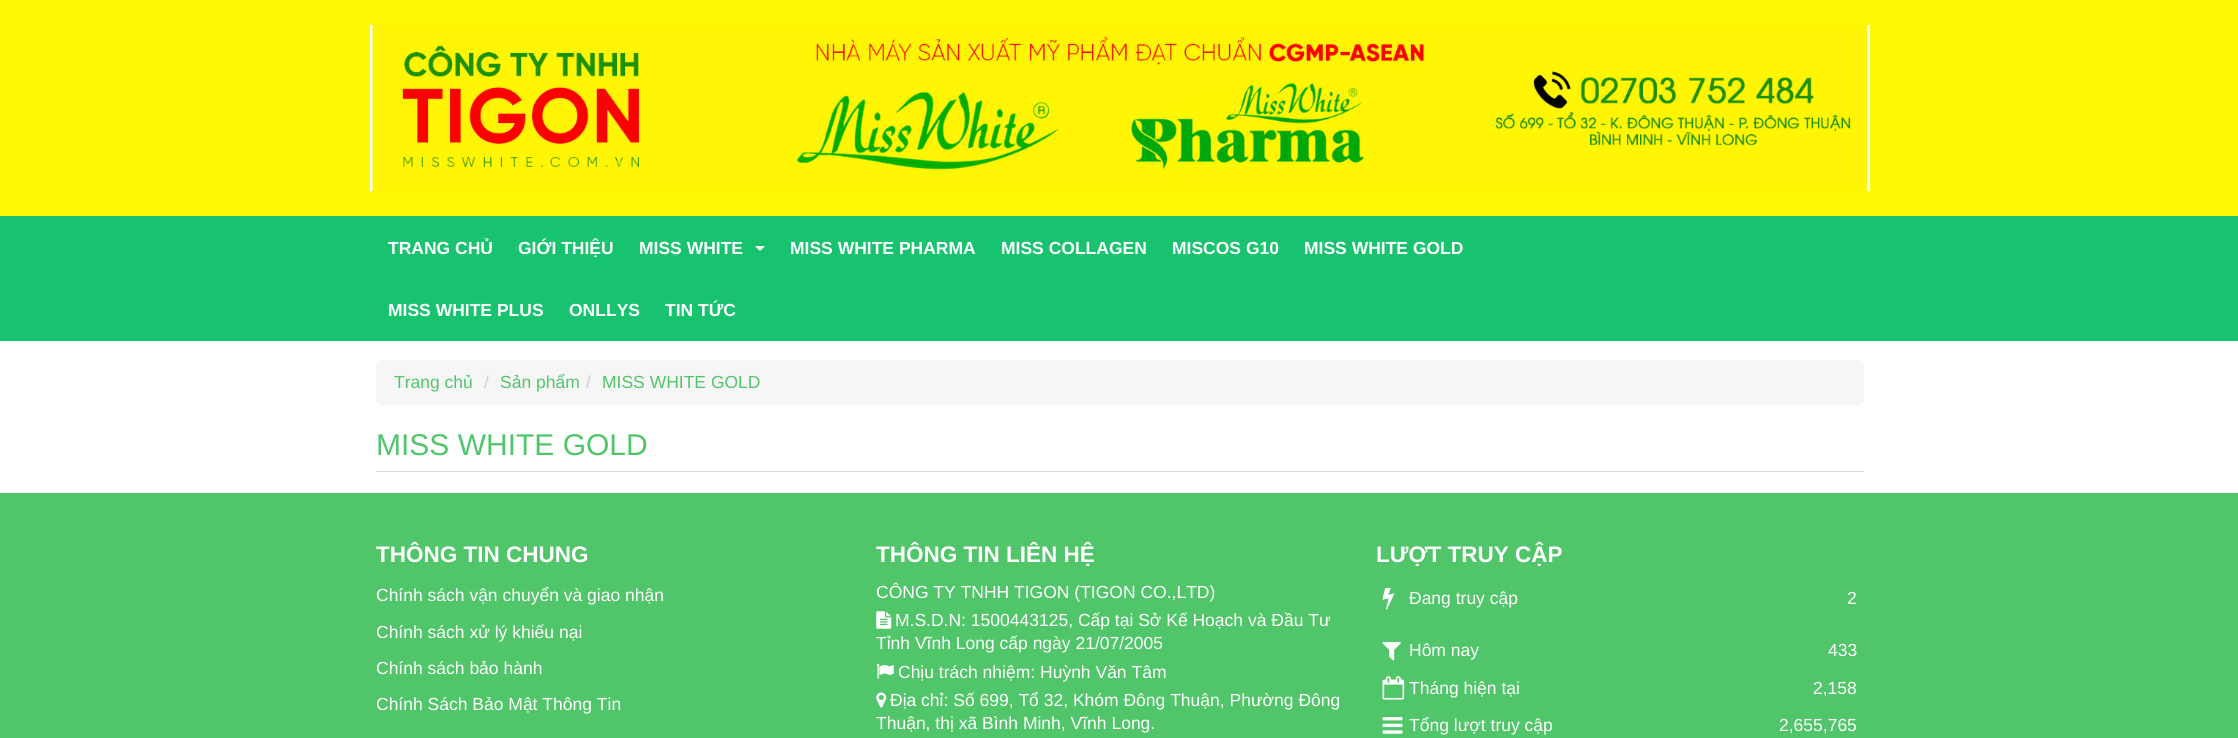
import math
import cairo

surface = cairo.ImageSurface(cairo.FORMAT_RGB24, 2238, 738)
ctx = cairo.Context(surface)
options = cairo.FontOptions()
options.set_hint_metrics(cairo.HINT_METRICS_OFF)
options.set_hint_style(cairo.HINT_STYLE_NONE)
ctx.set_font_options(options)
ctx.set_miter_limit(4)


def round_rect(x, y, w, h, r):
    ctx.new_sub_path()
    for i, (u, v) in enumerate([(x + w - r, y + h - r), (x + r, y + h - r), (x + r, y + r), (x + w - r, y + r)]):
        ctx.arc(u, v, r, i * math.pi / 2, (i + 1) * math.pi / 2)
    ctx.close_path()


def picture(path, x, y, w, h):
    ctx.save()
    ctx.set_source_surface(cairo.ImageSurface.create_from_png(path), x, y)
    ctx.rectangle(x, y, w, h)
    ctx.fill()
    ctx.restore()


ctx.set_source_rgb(1, 1, 1)
ctx.paint()
ctx.set_source_rgb(1, 0.969, 0.016)
ctx.rectangle(0, 0, 2238, 216)
ctx.fill()
picture("img1.png", 370, 25, 1500, 167)
ctx.set_source_rgb(0.09, 0.765, 0.435)
ctx.rectangle(0, 216, 2238, 125)
ctx.fill()
ctx.select_font_face("Liberation Sans", cairo.FONT_SLANT_NORMAL, cairo.FONT_WEIGHT_BOLD)
ctx.set_font_size(17.5)
ctx.set_source_rgb(1, 1, 1)
ctx.move_to(388, 254)
ctx.show_text("TRANG CHỦ")
ctx.move_to(518, 254)
ctx.show_text("GIỚI THIỆU")
ctx.move_to(639, 254)
ctx.show_text("MISS WHITE")
ctx.new_path()
ctx.move_to(755, 246)
ctx.line_to(765, 246)
ctx.line_to(760, 251)
ctx.close_path()
ctx.fill()
ctx.move_to(790, 254)
ctx.show_text("MISS WHITE PHARMA")
ctx.move_to(1001, 254)
ctx.show_text("MISS COLLAGEN")
ctx.move_to(1172, 254)
ctx.show_text("MISCOS G10")
ctx.move_to(1304, 254)
ctx.show_text("MISS WHITE GOLD")
ctx.move_to(388, 316)
ctx.show_text("MISS WHITE PLUS")
ctx.move_to(569, 316)
ctx.show_text("ONLLYS")
ctx.move_to(665, 316)
ctx.show_text("TIN TỨC")
ctx.set_source_rgb(0.961, 0.961, 0.961)
round_rect(376, 360, 1488, 45, 5)
ctx.fill()
ctx.select_font_face("Liberation Sans")
ctx.set_source_rgb(0.318, 0.773, 0.412)
ctx.move_to(394, 388)
ctx.show_text("Trang chủ")
ctx.set_source_rgb(0.8, 0.8, 0.8)
ctx.move_to(484, 388)
ctx.show_text("/")
ctx.set_source_rgb(0.318, 0.773, 0.412)
ctx.move_to(500, 388)
ctx.show_text("Sản phẩm")
ctx.set_source_rgb(0.8, 0.8, 0.8)
ctx.move_to(586, 388)
ctx.show_text("/")
ctx.set_source_rgb(0.318, 0.773, 0.412)
ctx.move_to(602, 388)
ctx.show_text("MISS WHITE GOLD")
ctx.set_source_rgb(0.867, 0.867, 0.867)
ctx.rectangle(376, 471, 1488, 1)
ctx.fill()
ctx.set_font_size(30)
ctx.set_source_rgb(0.318, 0.773, 0.412)
ctx.move_to(376, 455)
ctx.show_text("MISS WHITE GOLD")
ctx.rectangle(0, 493, 2238, 245)
ctx.fill()
ctx.select_font_face("Liberation Sans", cairo.FONT_SLANT_NORMAL, cairo.FONT_WEIGHT_BOLD)
ctx.set_font_size(22.5)
ctx.set_source_rgb(1, 1, 1)
ctx.move_to(376, 562)
ctx.show_text("THÔNG TIN CHUNG")
ctx.select_font_face("Liberation Sans")
ctx.set_font_size(17.5)
ctx.move_to(376, 601)
ctx.show_text("Chính sách vận chuyển và giao nhận")
ctx.move_to(376, 638)
ctx.show_text("Chính sách xử lý khiếu nại")
ctx.move_to(376, 674)
ctx.show_text("Chính sách bảo hành")
ctx.move_to(376, 710)
ctx.show_text("Chính Sách Bảo Mật Thông Tin")
ctx.select_font_face("Liberation Sans", cairo.FONT_SLANT_NORMAL, cairo.FONT_WEIGHT_BOLD)
ctx.set_font_size(22.5)
ctx.move_to(876, 562)
ctx.show_text("THÔNG TIN LIÊN HỆ")
ctx.select_font_face("Liberation Sans")
ctx.set_font_size(17.5)
ctx.move_to(876, 598)
ctx.show_text("CÔNG TY TNHH TIGON (TIGON CO.,LTD)")
picture("img2.png", 876, 611, 16, 18)
ctx.move_to(895, 626)
ctx.show_text("M.S.D.N: 1500443125, Cấp tại Sở Kế Hoạch và Đầu Tư")
ctx.move_to(876, 649)
ctx.show_text("Tỉnh Vĩnh Long cấp ngày 21/07/2005")
picture("img3.png", 876, 663, 18, 16)
ctx.move_to(898, 678)
ctx.show_text("Chịu trách nhiệm: Huỳnh Văn Tâm")
picture("img4.png", 876, 692, 11, 16)
ctx.move_to(890, 706)
ctx.show_text("Địa chỉ: Số 699, Tổ 32, Khóm Đông Thuận, Phường Đông")
ctx.move_to(876, 729)
ctx.show_text("Thuận, thị xã Bình Minh, Vĩnh Long.")
ctx.select_font_face("Liberation Sans", cairo.FONT_SLANT_NORMAL, cairo.FONT_WEIGHT_BOLD)
ctx.set_font_size(22.5)
ctx.move_to(1376, 562)
ctx.show_text("LƯỢT TRUY CẬP")
picture("img5.png", 1382, 587, 13, 23)
ctx.select_font_face("Liberation Sans")
ctx.set_font_size(17.5)
ctx.move_to(1409, 604)
ctx.show_text("Đang truy cập")
ctx.move_to(1847, 604)
ctx.show_text("2")
picture("img6.png", 1382, 642, 19, 19)
ctx.move_to(1409, 656)
ctx.show_text("Hôm nay")
ctx.move_to(1828, 656)
ctx.show_text("433")
picture("img7.png", 1382, 676, 23, 24)
ctx.move_to(1409, 694)
ctx.show_text("Tháng hiện tại")
ctx.move_to(1813, 694)
ctx.show_text("2,158")
picture("img8.png", 1382, 717, 21, 17)
ctx.move_to(1409, 731)
ctx.show_text("Tổng lượt truy cập")
ctx.move_to(1779, 731)
ctx.show_text("2,655,765")
surface.write_to_png("page.png")
